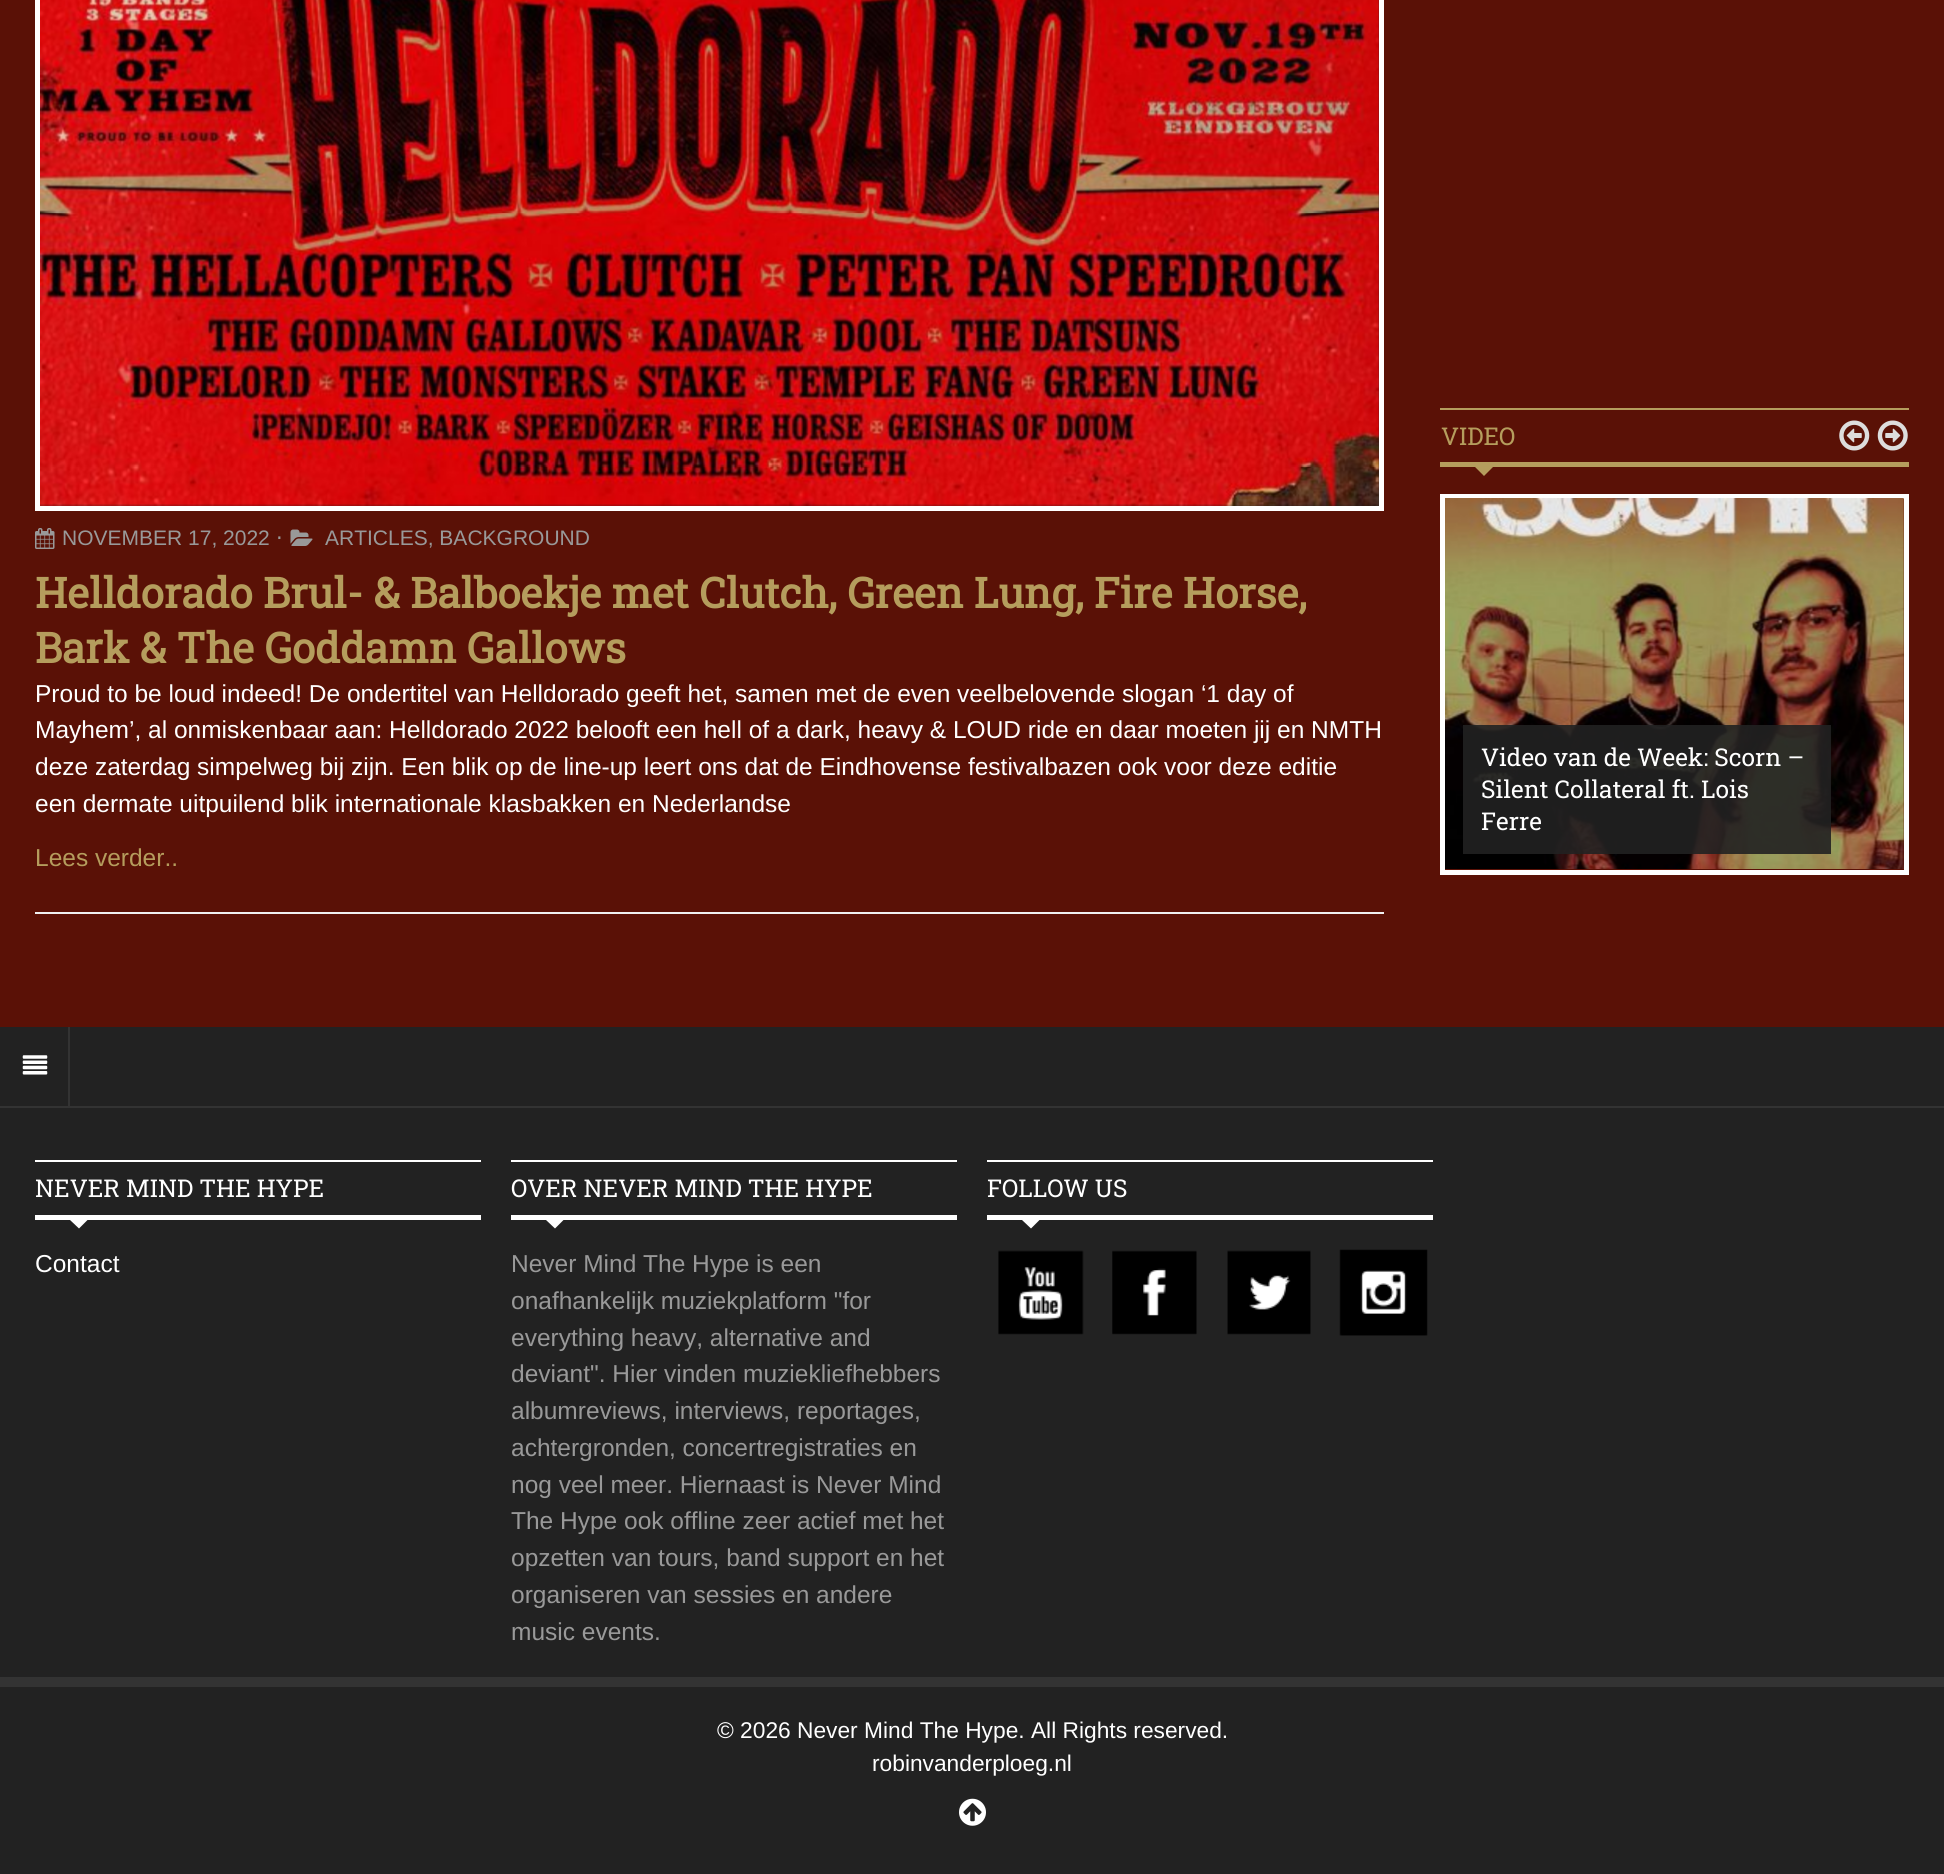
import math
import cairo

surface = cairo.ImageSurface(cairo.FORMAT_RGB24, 1944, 1874)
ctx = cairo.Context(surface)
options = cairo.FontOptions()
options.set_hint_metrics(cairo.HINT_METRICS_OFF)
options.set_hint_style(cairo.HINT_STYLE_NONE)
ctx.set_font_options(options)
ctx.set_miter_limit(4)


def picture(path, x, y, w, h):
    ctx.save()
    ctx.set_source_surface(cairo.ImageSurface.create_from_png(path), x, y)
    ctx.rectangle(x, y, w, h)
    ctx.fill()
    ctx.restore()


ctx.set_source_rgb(0.353, 0.067, 0.024)
ctx.paint()
ctx.set_source_rgb(0.941, 0.941, 0.941)
ctx.rectangle(35, 912, 1349, 2)
ctx.fill()
ctx.set_source_rgb(0.133, 0.133, 0.133)
ctx.rectangle(37.5, -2.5, 1344, 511)
ctx.fill_preserve()
ctx.set_source_rgb(1, 1, 1)
ctx.set_line_width(5)
ctx.stroke()
picture("img1.png", 40, 0, 1339, 506)
picture("img2.png", 35, 528, 20, 21)
ctx.select_font_face("Liberation Sans")
ctx.set_font_size(21)
ctx.set_source_rgb(0.6, 0.6, 0.6)
ctx.move_to(62, 545)
ctx.show_text("NOVEMBER 17, 2022")
ctx.select_font_face("DejaVu Sans")
ctx.move_to(276, 545)
ctx.show_text("⋅")
picture("img3.png", 290, 529, 23, 17)
ctx.select_font_face("Liberation Sans")
ctx.move_to(325, 545)
ctx.show_text("ARTICLES, BACKGROUND")
ctx.select_font_face("Roboto Slab", cairo.FONT_SLANT_NORMAL, cairo.FONT_WEIGHT_BOLD)
ctx.set_font_size(42)
ctx.set_source_rgb(0.71, 0.616, 0.365)
ctx.move_to(35, 608)
ctx.show_text("Helldorado Brul- & Balboekje met Clutch, Green Lung, Fire Horse,")
ctx.move_to(35, 663)
ctx.show_text("Bark & The Goddamn Gallows")
ctx.select_font_face("Liberation Sans")
ctx.set_font_size(24.5)
ctx.set_source_rgb(1, 1, 1)
ctx.move_to(35, 702)
ctx.show_text("Proud to be loud indeed! De ondertitel van Helldorado geeft het, samen met de even veelbelovende slogan ‘1 day of")
ctx.move_to(35, 738)
ctx.show_text("Mayhem’, al onmiskenbaar aan: Helldorado 2022 belooft een hell of a dark, heavy & LOUD ride en daar moeten jij en NMTH")
ctx.move_to(35, 775)
ctx.show_text("deze zaterdag simpelweg bij zijn. Een blik op de line-up leert ons dat de Eindhovense festivalbazen ook voor deze editie")
ctx.move_to(35, 812)
ctx.show_text("een dermate uitpuilend blik internationale klasbakken en Nederlandse")
ctx.set_source_rgb(0.71, 0.616, 0.365)
ctx.move_to(35, 866)
ctx.show_text("Lees verder..")
ctx.rectangle(1440, 408, 469, 2)
ctx.fill()
ctx.rectangle(1440, 462, 469, 5)
ctx.fill()
ctx.select_font_face("Roboto Slab")
ctx.move_to(1441, 445)
ctx.show_text("VIDEO")
ctx.new_path()
ctx.move_to(1475, 467)
ctx.line_to(1493, 467)
ctx.line_to(1484, 476)
ctx.close_path()
ctx.fill()
picture("img4.png", 1839, 420, 31, 31)
picture("img5.png", 1877, 420, 31, 31)
ctx.rectangle(1442.5, 496.5, 464, 376)
ctx.set_source_rgb(1, 1, 1)
ctx.stroke()
picture("img6.png", 1445, 498, 459, 371)
ctx.set_source_rgba(0.133, 0.133, 0.133, 0.9)
ctx.rectangle(1463, 725, 368, 129)
ctx.fill()
ctx.set_source_rgb(1, 1, 1)
ctx.move_to(1481, 766)
ctx.show_text("Video van de Week: Scorn –")
ctx.move_to(1481, 798)
ctx.show_text("Silent Collateral ft. Lois")
ctx.move_to(1481, 830)
ctx.show_text("Ferre")
ctx.set_source_rgb(0.133, 0.133, 0.133)
ctx.rectangle(0, 1027, 1944, 847)
ctx.fill()
ctx.set_source_rgb(0.2, 0.2, 0.2)
ctx.rectangle(0, 1106, 1944, 2)
ctx.fill()
ctx.rectangle(68, 1027, 2, 79)
ctx.fill()
picture("img7.png", 22, 1055, 26, 20)
ctx.set_source_rgb(1, 1, 1)
ctx.rectangle(35, 1160, 446, 2)
ctx.fill()
ctx.rectangle(35, 1215, 446, 5)
ctx.fill()
ctx.move_to(35, 1197)
ctx.show_text("NEVER MIND THE HYPE")
ctx.new_path()
ctx.move_to(70, 1220)
ctx.line_to(87.5, 1220)
ctx.line_to(79, 1228.5)
ctx.close_path()
ctx.fill()
ctx.select_font_face("Liberation Sans")
ctx.move_to(35, 1272)
ctx.show_text("Contact")
ctx.rectangle(511, 1160, 446, 2)
ctx.fill()
ctx.rectangle(511, 1215, 446, 5)
ctx.fill()
ctx.select_font_face("Roboto Slab")
ctx.move_to(511, 1197)
ctx.show_text("OVER NEVER MIND THE HYPE")
ctx.new_path()
ctx.move_to(546, 1220)
ctx.line_to(563.5, 1220)
ctx.line_to(555, 1228.5)
ctx.close_path()
ctx.fill()
ctx.select_font_face("Liberation Sans")
ctx.set_source_rgb(0.6, 0.6, 0.6)
ctx.move_to(511, 1272)
ctx.show_text("Never Mind The Hype is een")
ctx.move_to(511, 1309)
ctx.show_text("onafhankelijk muziekplatform \"for")
ctx.move_to(511, 1346)
ctx.show_text("everything heavy, alternative and")
ctx.move_to(511, 1382)
ctx.show_text("deviant\". Hier vinden muziekliefhebbers")
ctx.move_to(511, 1419)
ctx.show_text("albumreviews, interviews, reportages,")
ctx.move_to(511, 1456)
ctx.show_text("achtergronden, concertregistraties en")
ctx.move_to(511, 1493)
ctx.show_text("nog veel meer. Hiernaast is Never Mind")
ctx.move_to(511, 1529)
ctx.show_text("The Hype ook offline zeer actief met het")
ctx.move_to(511, 1566)
ctx.show_text("opzetten van tours, band support en het")
ctx.move_to(511, 1603)
ctx.show_text("organiseren van sessies en andere")
ctx.move_to(511, 1640)
ctx.show_text("music events.")
ctx.set_source_rgb(1, 1, 1)
ctx.rectangle(987, 1160, 446, 2)
ctx.fill()
ctx.rectangle(987, 1215, 446, 5)
ctx.fill()
ctx.select_font_face("Roboto Slab")
ctx.move_to(987, 1197)
ctx.show_text("FOLLOW US")
ctx.new_path()
ctx.move_to(1022, 1220)
ctx.line_to(1039.5, 1220)
ctx.line_to(1031, 1228.5)
ctx.close_path()
ctx.fill()
picture("img8.png", 998, 1250, 86, 85)
picture("img9.png", 1112, 1250, 85, 85)
picture("img10.png", 1227, 1250, 84, 85)
picture("img11.png", 1339, 1249, 89, 87)
ctx.set_source_rgb(0.2, 0.2, 0.2)
ctx.rectangle(0, 1677, 1944, 10)
ctx.fill()
ctx.select_font_face("Liberation Sans")
ctx.set_font_size(22.75)
ctx.set_source_rgb(1, 1, 1)
ctx.move_to(717, 1738)
ctx.show_text("© 2026 Never Mind The Hype. All Rights reserved.")
ctx.move_to(872, 1771)
ctx.show_text("robinvanderploeg.nl")
picture("img12.png", 959, 1798, 27, 28)
surface.write_to_png("page.png")
